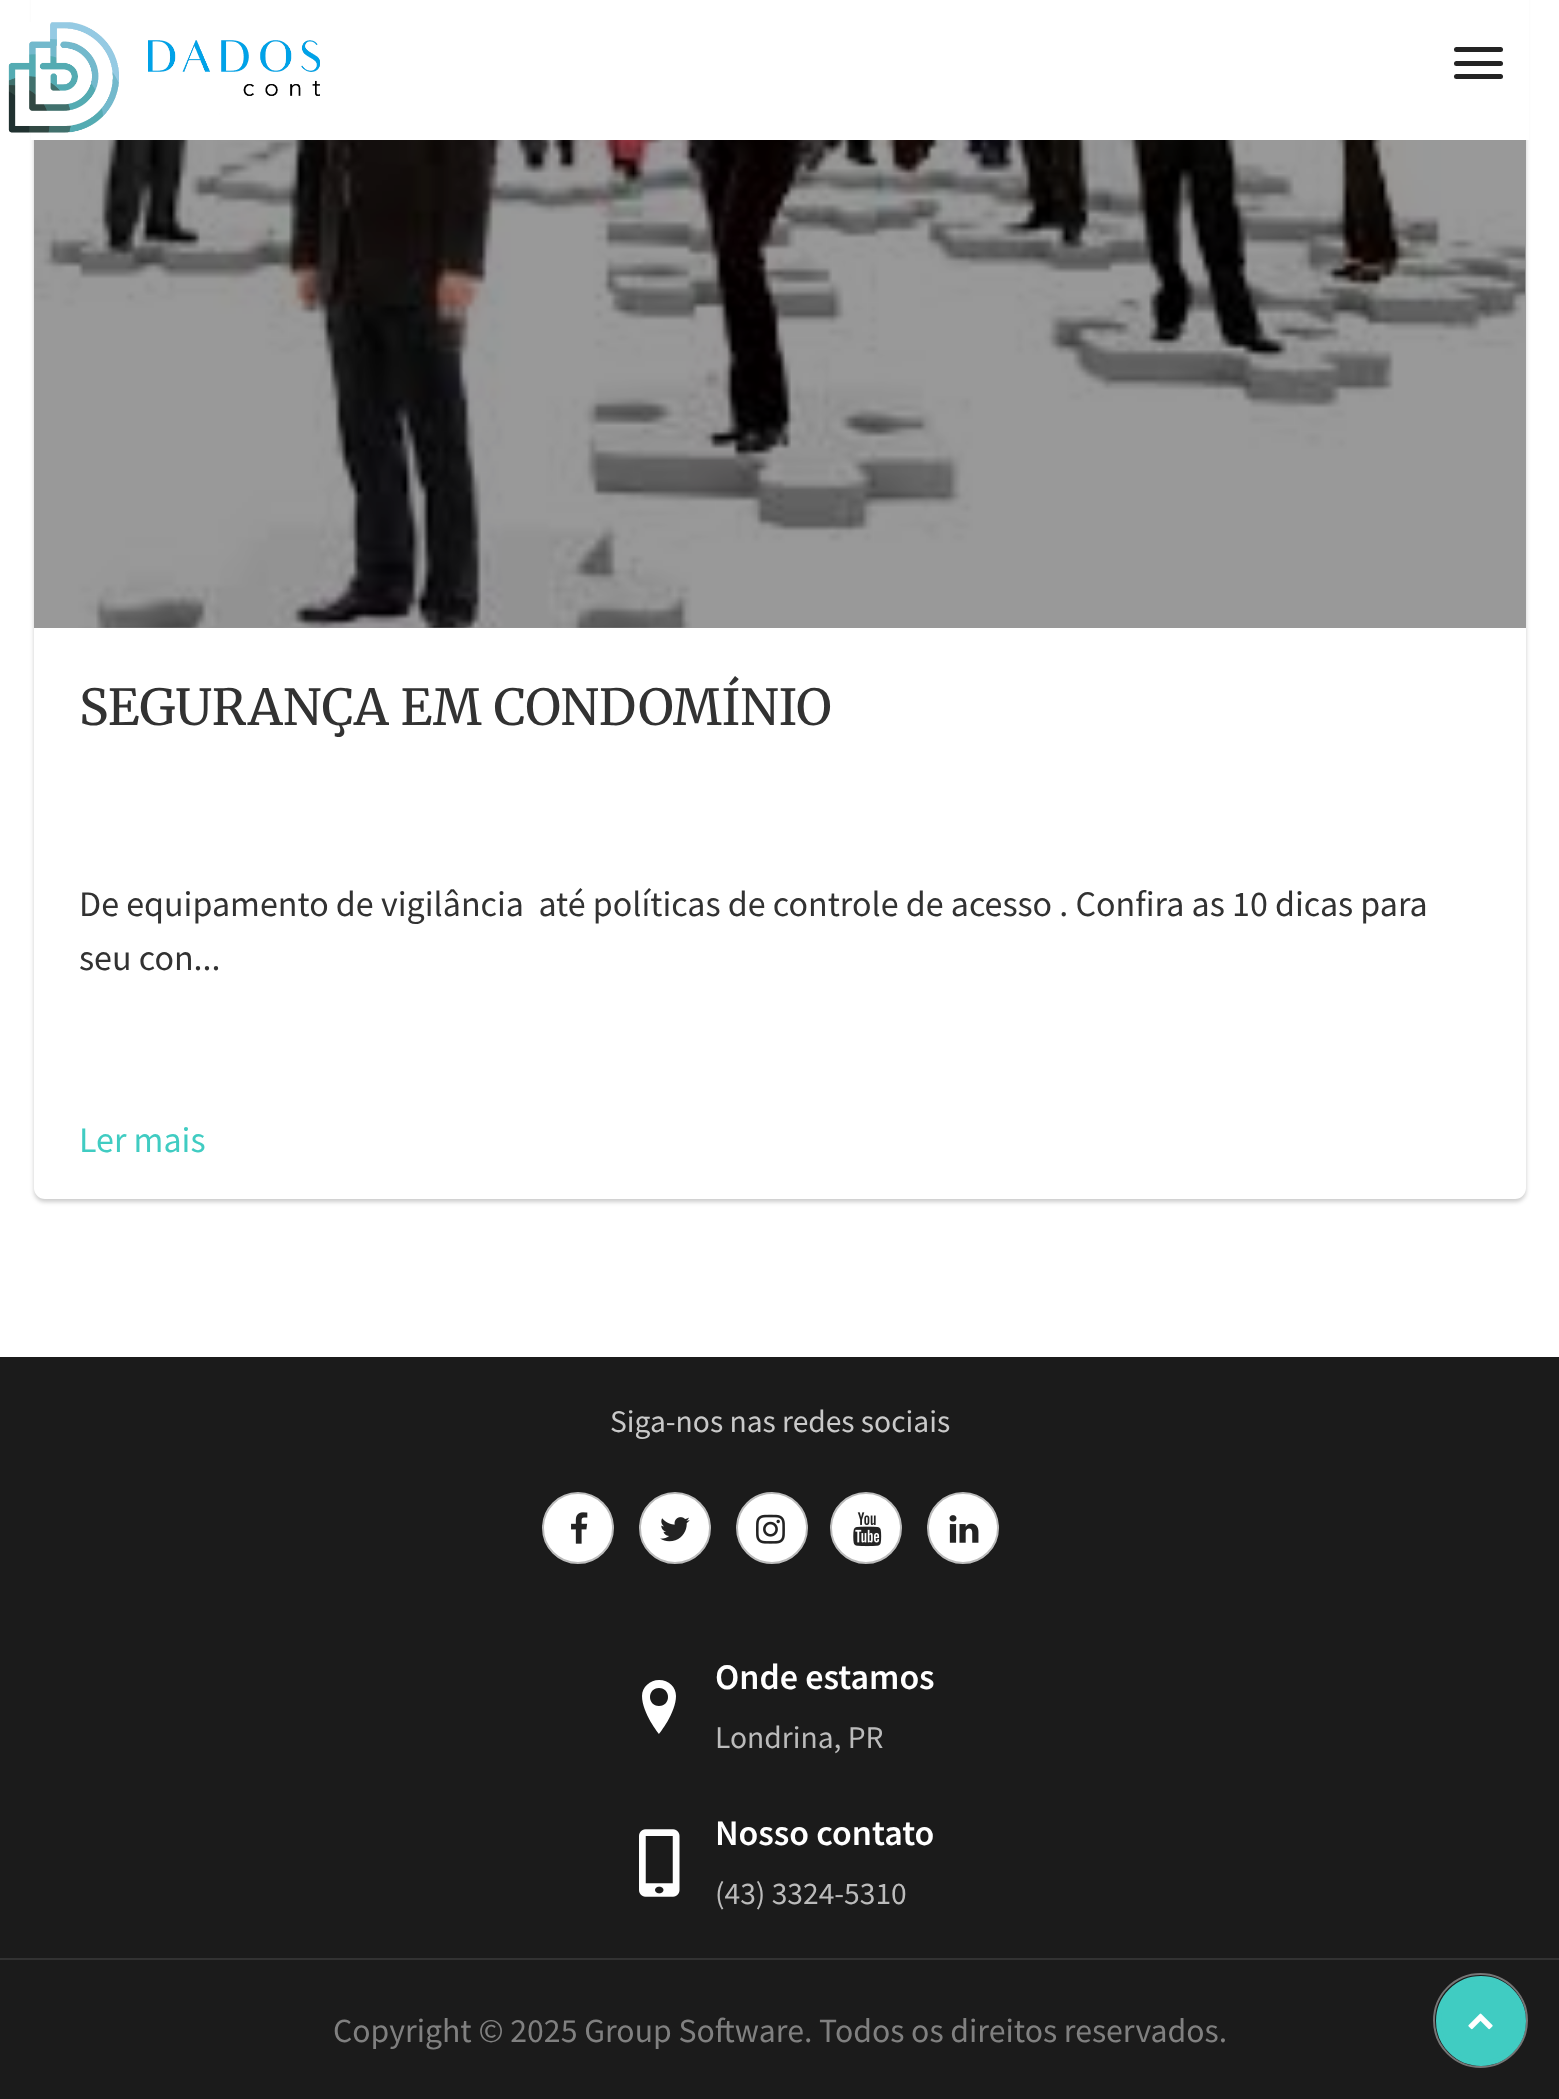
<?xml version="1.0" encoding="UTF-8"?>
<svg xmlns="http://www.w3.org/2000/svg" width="1559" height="2099">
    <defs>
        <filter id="blur1" x="-50%" y="-200%" width="200%" height="500%"><feGaussianBlur stdDeviation="2"/></filter>
    </defs>
    <rect width="100%" height="100%" fill="#FFFFFF"/>
    <rect x="34" y="-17" width="1492" height="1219" rx="11" fill="#000000" fill-opacity="0.2" filter="url(#blur1)"/>
    <rect x="34" y="-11" width="1492" height="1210" rx="11" fill="#FFFFFF"/>
    <rect x="31" y="0" width="1498" height="140" fill="#FFFFFF"/>
    <image x="8" y="22" width="312" height="111" href="img_01.png"/>
    <rect x="1454" y="47" width="49" height="5" rx="2.5" fill="#232323"/>
    <rect x="1454" y="61" width="49" height="5" rx="2.5" fill="#232323"/>
    <rect x="1454" y="74" width="49" height="5" rx="2.5" fill="#232323"/>
    <image x="34" y="140" width="1492" height="488" href="img_02.png"/>
    <rect x="34" y="140" width="1492" height="488" fill="#000000" fill-opacity="0.4"/>
    <text x="79" y="725" font-family="Merriweather" font-size="49.5" fill="#323232">SEGURANÇA EM CONDOMÍNIO</text>
    <text font-family="Source Sans Pro" font-size="36" fill="#323232" xml:space="preserve"><tspan x="79" y="916">De equipamento de vigilância  até políticas de controle de acesso . Confira as 10 dicas para</tspan><tspan x="79" y="970">seu con...</tspan></text>
    <text x="79" y="1152" font-family="Source Sans Pro" font-size="36" fill="#40CCC2">Ler mais</text>
    <rect x="0" y="1357" width="1559" height="742" fill="#1B1B1B"/>
    <text x="610" y="1432" font-family="Source Sans Pro" font-size="31.5" fill="#C9C9C9">Siga-nos nas redes sociais</text>
    <circle cx="578" cy="1528" r="35" fill="#FFFFFF" stroke="#BCBCBC" stroke-width="2"/>
    <image x="571" y="1512" width="17" height="32" href="img_03.png"/>
    <circle cx="675" cy="1528" r="35" fill="#FFFFFF" stroke="#BCBCBC" stroke-width="2"/>
    <image x="660" y="1517" width="30" height="25" href="img_04.png"/>
    <circle cx="772" cy="1528" r="35" fill="#FFFFFF" stroke="#BCBCBC" stroke-width="2"/>
    <image x="756" y="1514" width="29" height="30" href="img_05.png"/>
    <circle cx="866" cy="1528" r="35" fill="#FFFFFF" stroke="#BCBCBC" stroke-width="2"/>
    <image x="853" y="1512" width="29" height="35" href="img_06.png"/>
    <circle cx="963" cy="1528" r="35" fill="#FFFFFF" stroke="#BCBCBC" stroke-width="2"/>
    <image x="949" y="1515" width="30" height="28" href="img_07.png"/>
    <path d="M 659 1680 C 650 1680 642 1687 642 1696 C 642 1713 659 1734 659 1734 C 659 1734 676 1713 676 1696 C 676 1687 669 1680 659 1680 Z M 659 1706 C 647 1706 647 1688 659 1688 C 671 1688 671 1706 659 1706 Z" fill="#FFFFFF"/>
    <text x="715" y="1689" font-family="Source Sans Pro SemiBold" font-size="36" font-weight="600" fill="#FFFFFF">Onde estamos</text>
    <text x="715" y="1748" font-family="Source Sans Pro" font-size="31.5" fill="#BBBBBB">Londrina, PR</text>
    <image x="639" y="1829" width="41" height="68" href="img_08.png"/>
    <text x="715" y="1845" font-family="Source Sans Pro SemiBold" font-size="36" font-weight="600" fill="#FFFFFF">Nosso contato</text>
    <text x="715" y="1904" font-family="Source Sans Pro" font-size="31.5" fill="#BBBBBB">(43) 3324-5310</text>
    <rect x="0" y="1958" width="1559" height="2" fill="#323232"/>
    <text x="333" y="2042" font-family="Source Sans Pro" font-size="33.75" fill="#808080">Copyright © 2025 Group Software. Todos os direitos reservados.</text>
    <circle cx="1480.5" cy="2020.5" r="46.5" fill="none" stroke="#767676" stroke-width="2"/>
    <circle cx="1481" cy="2021" r="42.5" fill="#40CCC2" stroke="#40CCC2" stroke-width="5"/>
    <image x="1468" y="2013" width="25" height="17" href="img_09.png"/>
</svg>
